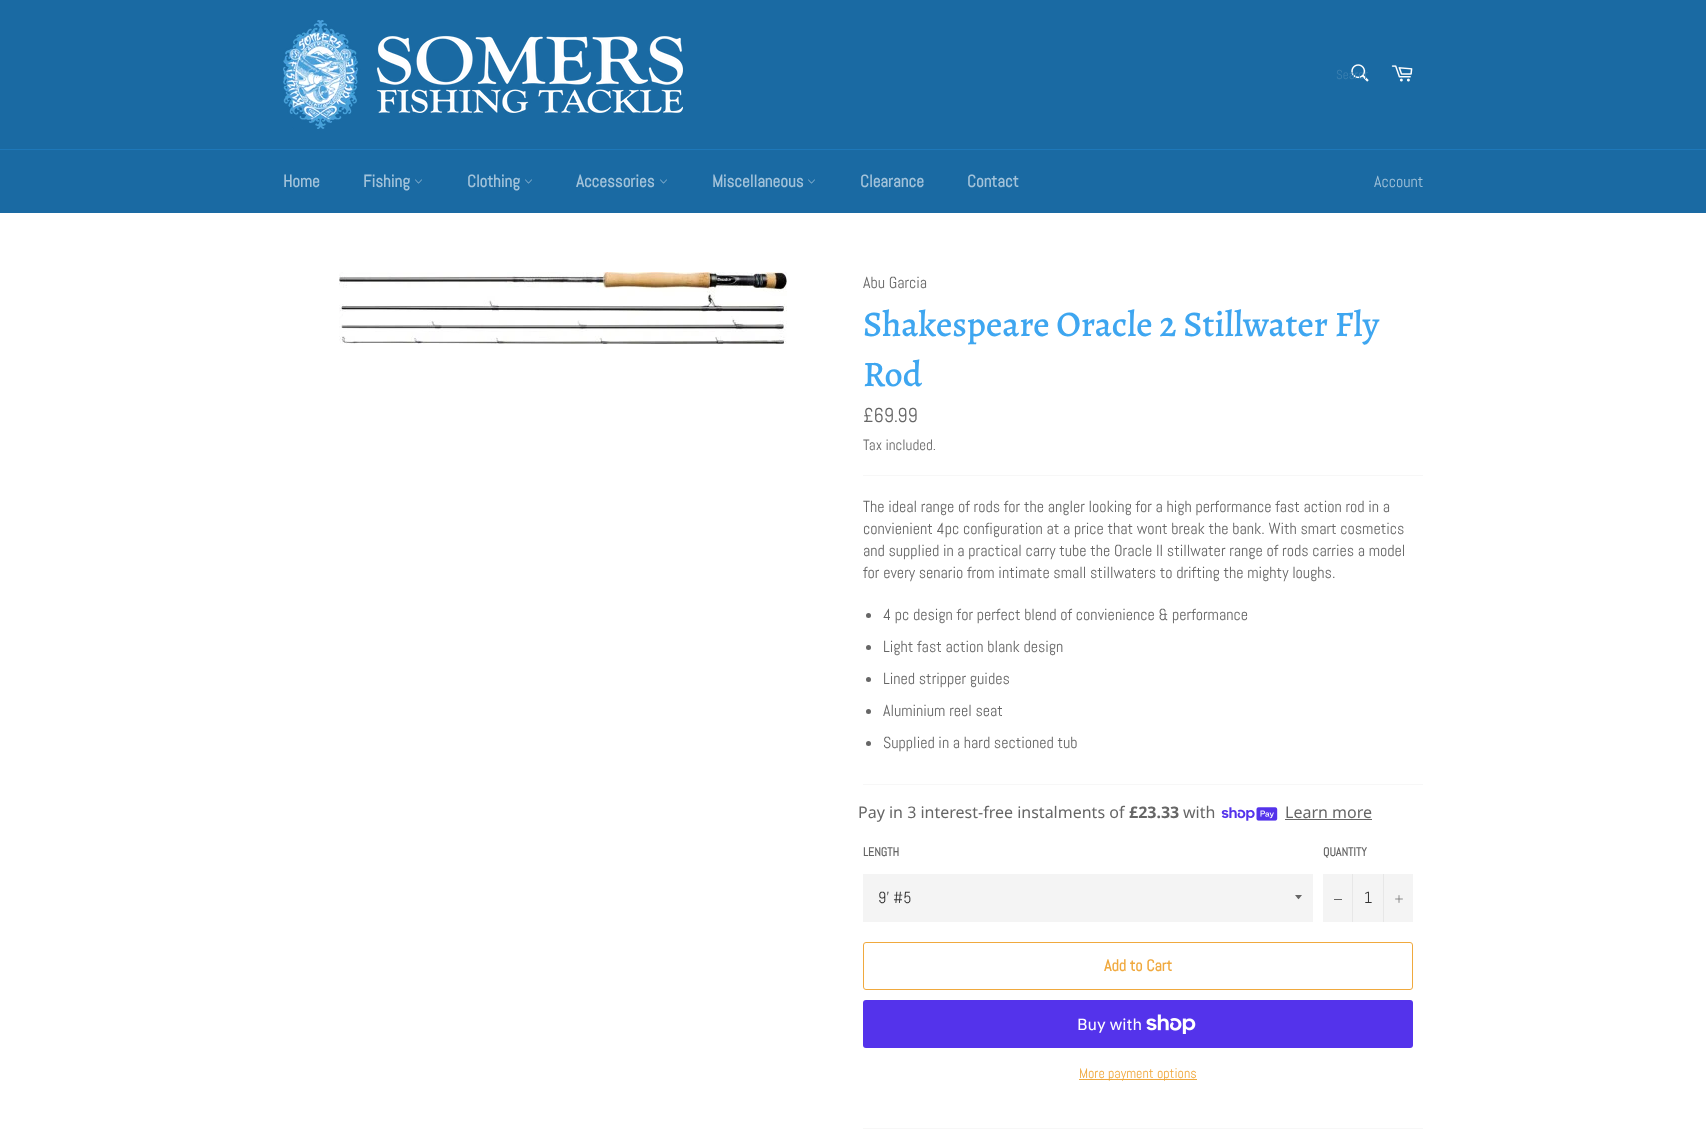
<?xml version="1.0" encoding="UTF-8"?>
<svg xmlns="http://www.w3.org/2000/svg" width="1706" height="1143">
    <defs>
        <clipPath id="clip1"><rect x="1336" y="66" width="32" height="17"/></clipPath>
    </defs>
    <rect width="100%" height="100%" fill="#1A6AA3"/>
    <image x="283" y="20" width="400" height="109" href="img_01.png"/>
    <image x="1351" y="64" width="18" height="18" href="img_02.png"/>
    <g clip-path="url(#clip1)">
        <text x="1336" y="79" font-family="Abel" font-size="13" fill="#3D81B1">Search</text>
    </g>
    <image x="1391" y="65" width="22" height="17" href="img_03.png"/>
    <rect x="0" y="149" width="1706" height="1" fill="#1E78B9"/>
    <text x="283" y="187" font-family="Abel" font-size="17" font-weight="700" fill="#A3C3DA">Home</text>
    <text x="363" y="187" font-family="Abel" font-size="17" font-weight="700" fill="#A3C3DA">Fishing</text>
    <image x="415" y="179" width="7" height="5" href="img_04.png"/>
    <text x="467" y="187" font-family="Abel" font-size="17" font-weight="700" fill="#A3C3DA">Clothing</text>
    <image x="525" y="179" width="7" height="5" href="img_04.png"/>
    <text x="576" y="187" font-family="Abel" font-size="17" font-weight="700" fill="#A3C3DA">Accessories</text>
    <image x="660" y="179" width="7" height="5" href="img_04.png"/>
    <text x="712" y="187" font-family="Abel" font-size="17" font-weight="700" fill="#A3C3DA">Miscellaneous</text>
    <image x="808" y="179" width="7" height="5" href="img_04.png"/>
    <text x="860" y="187" font-family="Abel" font-size="17" font-weight="700" fill="#A3C3DA">Clearance</text>
    <text x="967" y="187" font-family="Abel" font-size="17" font-weight="700" fill="#A3C3DA">Contact</text>
    <text x="1374" y="187" font-family="Abel" font-size="16" fill="#A3C3DA">Account</text>
    <rect x="0" y="213" width="1706" height="930" fill="#FFFFFF"/>
    <image x="339" y="272" width="448" height="72" href="img_05.png"/>
    <text x="863" y="288" font-family="Abel" font-size="16" fill="#666666">Abu Garcia</text>
    <text font-family="Alegreya" font-size="36" font-weight="500" fill="#3EA6F0">
        <tspan x="863" y="336">Shakespeare Oracle 2 Stillwater Fly</tspan>
        <tspan x="863" y="386">Rod</tspan>
    </text>
    <text x="863" y="422" font-family="Abel" font-size="20" fill="#666666">£69.99</text>
    <text x="863" y="450" font-family="Abel" font-size="15" fill="#666666">Tax included.</text>
    <rect x="863" y="475" width="560" height="1" fill="#F7F7F7"/>
    <text font-family="Abel" font-size="16" fill="#666666">
        <tspan x="863" y="512">The ideal range of rods for the angler looking for a high performance fast action rod in a</tspan>
        <tspan x="863" y="534">convienient 4pc configuration at a price that wont break the bank. With smart cosmetics</tspan>
        <tspan x="863" y="556">and supplied in a practical carry tube the Oracle II stillwater range of rods carries a model</tspan>
        <tspan x="863" y="578">for every senario from intimate small stillwaters to drifting the mighty loughs.</tspan>
    </text>
    <circle cx="868.5" cy="615.5" r="2.5" fill="#666666"/>
    <text x="883" y="620" font-family="Abel" font-size="16" fill="#666666">4 pc design for perfect blend of convienience &amp; performance</text>
    <circle cx="868.5" cy="647.5" r="2.5" fill="#666666"/>
    <text x="883" y="652" font-family="Abel" font-size="16" fill="#666666">Light fast action blank design</text>
    <circle cx="868.5" cy="679.5" r="2.5" fill="#666666"/>
    <text x="883" y="684" font-family="Abel" font-size="16" fill="#666666">Lined stripper guides</text>
    <circle cx="868.5" cy="711.5" r="2.5" fill="#666666"/>
    <text x="883" y="716" font-family="Abel" font-size="16" fill="#666666">Aluminium reel seat</text>
    <circle cx="868.5" cy="743.5" r="2.5" fill="#666666"/>
    <text x="883" y="748" font-family="Abel" font-size="16" fill="#666666">Supplied in a hard sectioned tub</text>
    <rect x="863" y="784" width="560" height="1" fill="#F7F7F7"/>
    <text x="858" y="818" font-family="Noto Sans" font-size="16" fill="#666666">Pay in 3 interest-free instalments of</text>
    <text x="1129" y="818" font-family="Noto Sans" font-size="16" font-weight="700" fill="#666666">£23.33</text>
    <text x="1183" y="818" font-family="Noto Sans" font-size="16" fill="#666666">with</text>
    <image x="1221" y="807" width="57" height="14" href="img_06.png"/>
    <text x="1285" y="818" font-family="Noto Sans" font-size="16" fill="#666666">Learn more</text>
    <rect x="1285" y="819" width="87" height="1" fill="#666666"/>
    <text x="863" y="856" font-family="Abel" font-size="12" font-weight="700" fill="#666666">LENGTH</text>
    <rect x="863" y="874" width="450" height="48" fill="#F4F4F4"/>
    <path d="M 1295 895 C 1299.5 900.5 1297.5 900.5 1302 895 Z" fill="#666666"/>
    <text x="878" y="903" font-family="Abel" font-size="16" fill="#333333">9' #5</text>
    <text x="1323" y="856" font-family="Abel" font-size="12" font-weight="700" fill="#666666">QUANTITY</text>
    <rect x="1323" y="874" width="90" height="48" fill="#F4F4F4"/>
    <rect x="1352" y="874" width="1" height="48" fill="#E7E7E7"/>
    <rect x="1334" y="899" width="8" height="1" fill="#666666"/>
    <text x="1364" y="903" font-family="Abel" font-size="16" fill="#333333">1</text>
    <rect x="1383" y="874" width="1" height="48" fill="#E7E7E7"/>
    <image x="1395" y="895" width="8" height="8" href="img_07.png"/>
    <rect x="863.5" y="942.5" width="549" height="47" rx="2.5" fill="none" stroke="#F0A93E"/>
    <text x="1104" y="971" font-family="Abel" font-size="16" font-weight="700" fill="#F0A93E">Add to Cart</text>
    <rect x="863" y="1000" width="550" height="48" rx="3" fill="#5433EB"/>
    <text x="1077" y="1030" font-family="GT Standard" font-size="16" fill="#FFFFFF">Buy with</text>
    <image x="1146" y="1014" width="50" height="20" href="img_08.png"/>
    <rect x="1079" y="1079" width="118" height="1" fill="#F0A93E"/>
    <text x="1079" y="1078" font-family="Abel" font-size="14" fill="#F0A93E">More payment options</text>
    <rect x="863" y="1128" width="560" height="1" fill="#F7F7F7"/>
</svg>
